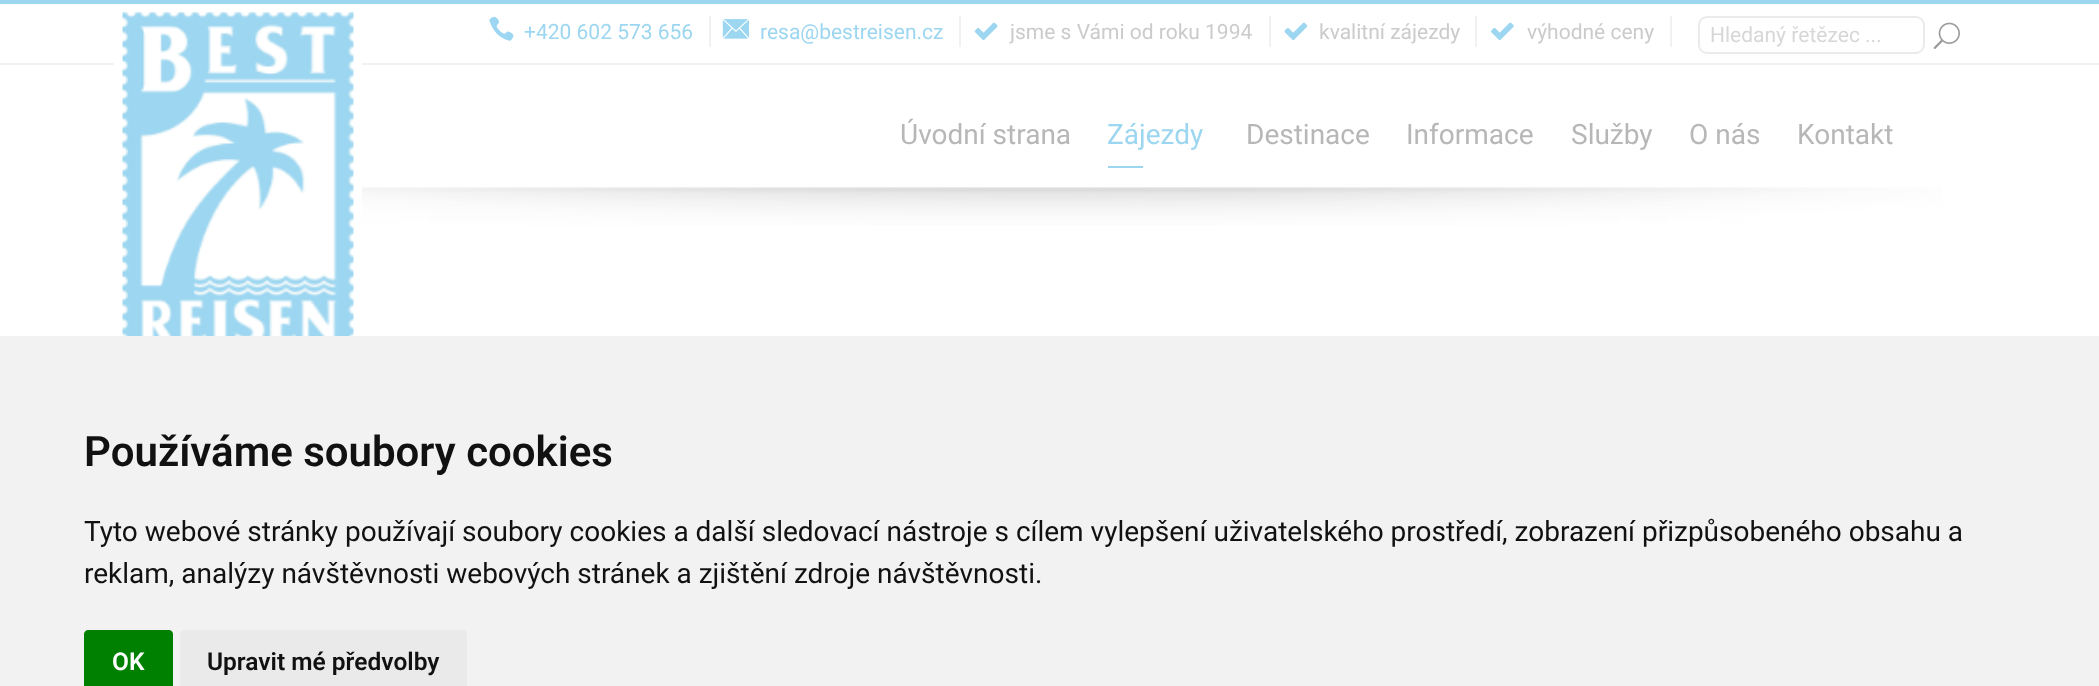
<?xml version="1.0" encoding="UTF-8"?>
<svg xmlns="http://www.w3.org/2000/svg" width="2099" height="686">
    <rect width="100%" height="100%" fill="#FFFFFF"/>
    <rect x="0" y="0" width="2099" height="4" fill="#9CD6F1"/>
    <rect x="0" y="63" width="2099" height="2" fill="#F1F1F1"/>
    <rect x="709" y="16" width="2" height="31" fill="#F1F1F1"/>
    <image x="489" y="16" width="25" height="25" href="img_01.png"/>
    <text x="524" y="39" font-family="Roboto" font-size="21" fill="#9CD6F1">+420 602 573 656</text>
    <rect x="959" y="16" width="2" height="31" fill="#F1F1F1"/>
    <image x="722" y="19" width="27" height="20" href="img_02.png"/>
    <text x="760" y="39" font-family="Roboto" font-size="21" fill="#9CD6F1">resa@bestreisen.cz</text>
    <rect x="1269" y="16" width="2" height="31" fill="#F1F1F1"/>
    <image x="974" y="22" width="24" height="18" href="img_03.png"/>
    <text x="1010" y="39" font-family="Roboto" font-size="21" fill="#CBCBCB">jsme s Vámi od roku 1994</text>
    <rect x="1475" y="16" width="2" height="31" fill="#F1F1F1"/>
    <image x="1284" y="22" width="24" height="18" href="img_04.png"/>
    <text x="1319" y="39" font-family="Roboto" font-size="21" fill="#CBCBCB">kvalitní zájezdy</text>
    <rect x="1670" y="16" width="2" height="31" fill="#F1F1F1"/>
    <image x="1491" y="22" width="23" height="18" href="img_05.png"/>
    <text x="1527" y="39" font-family="Roboto" font-size="21" fill="#CBCBCB">výhodné ceny</text>
    <rect x="1699" y="17" width="225" height="36" rx="8" fill="none" stroke="#EBEBEB" stroke-width="2"/>
    <text x="1710" y="42" font-family="Roboto" font-size="21" fill="#D7D7D7">Hledaný řetězec ...</text>
    <image x="1933" y="22" width="27" height="27" href="img_06.png"/>
    <rect x="118.5" y="8.5" width="239" height="358" fill="none" stroke="#FFFFFF" stroke-width="9"/>
    <image x="122" y="11" width="232" height="325" href="img_07.png"/>
    <text x="900" y="144" font-family="Roboto" font-size="28" fill="#B7B7B7">Úvodní strana</text>
    <text x="1107" y="144" font-family="Roboto" font-size="28" fill="#9CD6F1">Zájezdy</text>
    <rect x="1108" y="166" width="35" height="2" fill="#9CD6F1"/>
    <text x="1246" y="144" font-family="Roboto" font-size="28" fill="#B7B7B7">Destinace</text>
    <text x="1406" y="144" font-family="Roboto" font-size="28" fill="#B7B7B7">Informace</text>
    <text x="1571" y="144" font-family="Roboto" font-size="28" fill="#B7B7B7">Služby</text>
    <text x="1689" y="144" font-family="Roboto" font-size="28" fill="#B7B7B7">O nás</text>
    <text x="1797" y="144" font-family="Roboto" font-size="28" fill="#B7B7B7">Kontakt</text>
    <image x="362" y="187" width="1580" height="39" href="img_08.png"/>
    <rect x="0" y="336" width="2099" height="350" fill="#F2F2F2"/>
    <text x="84" y="466" font-family="Roboto" font-size="42" font-weight="600" fill="#111111">Používáme soubory cookies</text>
    <text font-family="Roboto" font-size="28" fill="#111111">
        <tspan x="84" y="541">Tyto webové stránky používají soubory cookies a další sledovací nástroje s cílem vylepšení uživatelského prostředí, zobrazení přizpůsobeného obsahu a</tspan>
        <tspan x="84" y="583">reklam, analýzy návštěvnosti webových stránek a zjištění zdroje návštěvnosti.</tspan>
    </text>
    <path d="M 88 630 H 169 C 171 630 173 632 173 634 V 686 H 84 V 634 C 84 632 86 630 88 630 Z" fill="#008000"/>
    <text x="112" y="670" font-family="Roboto" font-size="24.5" font-weight="600" fill="#FFFFFF">OK</text>
    <path d="M 184 630 H 463 C 465 630 467 632 467 634 V 686 H 180 V 634 C 180 632 182 630 184 630 Z" fill="#EAEAEA"/>
    <text x="207" y="670" font-family="Roboto" font-size="24.5" font-weight="600" fill="#111111">Upravit mé předvolby</text>
</svg>
